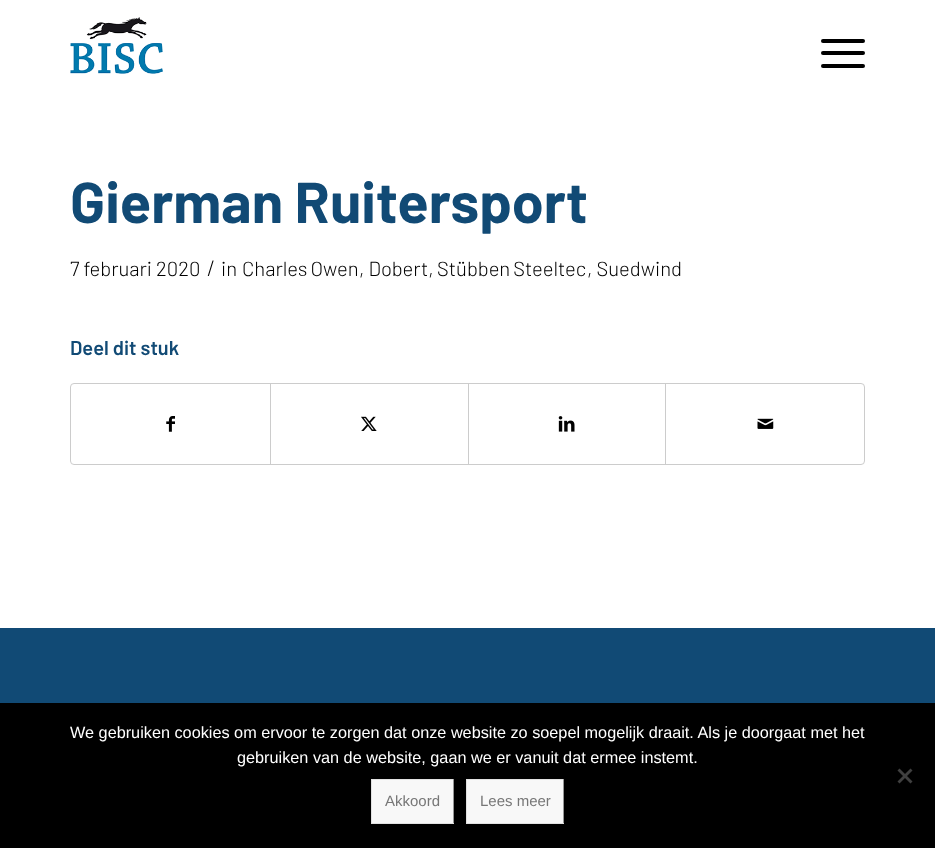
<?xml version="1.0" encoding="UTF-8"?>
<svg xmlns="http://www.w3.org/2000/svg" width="935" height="848">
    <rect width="100%" height="100%" fill="#FFFFFF"/>
    <image x="70" y="17" width="93" height="57" href="img_01.png"/>
    <rect x="821" y="51" width="44" height="4" rx="2" fill="#000000"/>
    <rect x="821" y="39" width="44" height="4" rx="2" fill="#000000"/>
    <rect x="821" y="64" width="44" height="4" rx="2" fill="#000000"/>
    <text x="70" y="223" font-family="Barlow" font-size="57.5" font-weight="700" fill="#114A75">Gierman Ruitersport</text>
    <text x="70" y="276" font-family="Barlow" font-size="20.25" font-weight="300" fill="#000000">7 februari 2020</text>
    <text x="207" y="276" font-family="Barlow" font-size="22" font-weight="300" fill="#000000">/</text>
    <text x="221" y="276" font-family="Barlow" font-size="20.25" font-weight="300" fill="#000000">in</text>
    <text x="242" y="276" word-spacing="-1" font-family="Barlow" font-size="20.25" font-weight="300" fill="#000000">Charles Owen</text>
    <text x="359" y="276" font-family="Barlow" font-size="20.25" font-weight="300" fill="#000000">, Dobert,</text>
    <text x="437" y="276" word-spacing="-1" font-family="Barlow" font-size="20.25" font-weight="300" fill="#000000">Stübben Steeltec</text>
    <text x="587" y="276" font-family="Barlow" font-size="20.25" font-weight="300" fill="#000000">, Suedwind</text>
    <text x="70" y="355" font-family="Barlow" font-size="20" font-weight="600" fill="#114A75">Deel dit stuk</text>
    <rect x="70.5" y="383.5" width="794" height="81" rx="3.5" fill="none" stroke="#CCCCCC"/>
    <image x="166" y="416" width="9" height="16" href="img_02.png"/>
    <rect x="270" y="384" width="1" height="80" fill="#CCCCCC"/>
    <image x="361" y="416" width="16" height="15" href="img_03.png"/>
    <rect x="468" y="384" width="1" height="80" fill="#CCCCCC"/>
    <image x="558" y="416" width="17" height="16" href="img_04.png"/>
    <rect x="665" y="384" width="1" height="80" fill="#CCCCCC"/>
    <image x="757" y="418" width="17" height="11" href="img_05.png"/>
    <rect x="0" y="628" width="935" height="75" fill="#114A75"/>
    <rect x="0" y="703" width="935" height="145" fill="#000000"/>
    <text x="70" y="738" font-family="Liberation Sans" font-size="16.25" fill="#FFFFFF">We gebruiken cookies om ervoor te zorgen dat onze website zo soepel mogelijk draait. Als je doorgaat met het</text>
    <text x="237" y="763" font-family="Liberation Sans" font-size="16.25" fill="#FFFFFF">gebruiken van de website, gaan we er vanuit dat ermee instemt.</text>
    <path d="M 910.5 768.5 L 912.5 770.5 L 899.5 783.5 L 897.5 781.5 Z" fill="#404040"/>
    <path d="M 897.5 770.5 L 899.5 768.5 L 912.5 781.5 L 910.5 783.5 Z" fill="#404040"/>
    <rect x="372" y="780" width="81" height="43" fill="#F8F8F8"/>
    <rect x="371" y="779" width="83" height="1" fill="#E1E1E1"/>
    <rect x="453" y="779" width="1" height="45" fill="#969696"/>
    <rect x="371" y="823" width="83" height="1" fill="#E1E1E1"/>
    <rect x="371" y="779" width="1" height="45" fill="#E1E1E1"/>
    <text x="385" y="806" font-family="Liberation Sans" font-size="15" fill="#777777">Akkoord</text>
    <rect x="467" y="780" width="96" height="43" fill="#F8F8F8"/>
    <rect x="466" y="779" width="98" height="1" fill="#E1E1E1"/>
    <rect x="563" y="779" width="1" height="45" fill="#969696"/>
    <rect x="466" y="823" width="98" height="1" fill="#E1E1E1"/>
    <rect x="466" y="779" width="1" height="45" fill="#E1E1E1"/>
    <text x="480" y="806" font-family="Liberation Sans" font-size="15" fill="#777777">Lees meer</text>
</svg>
